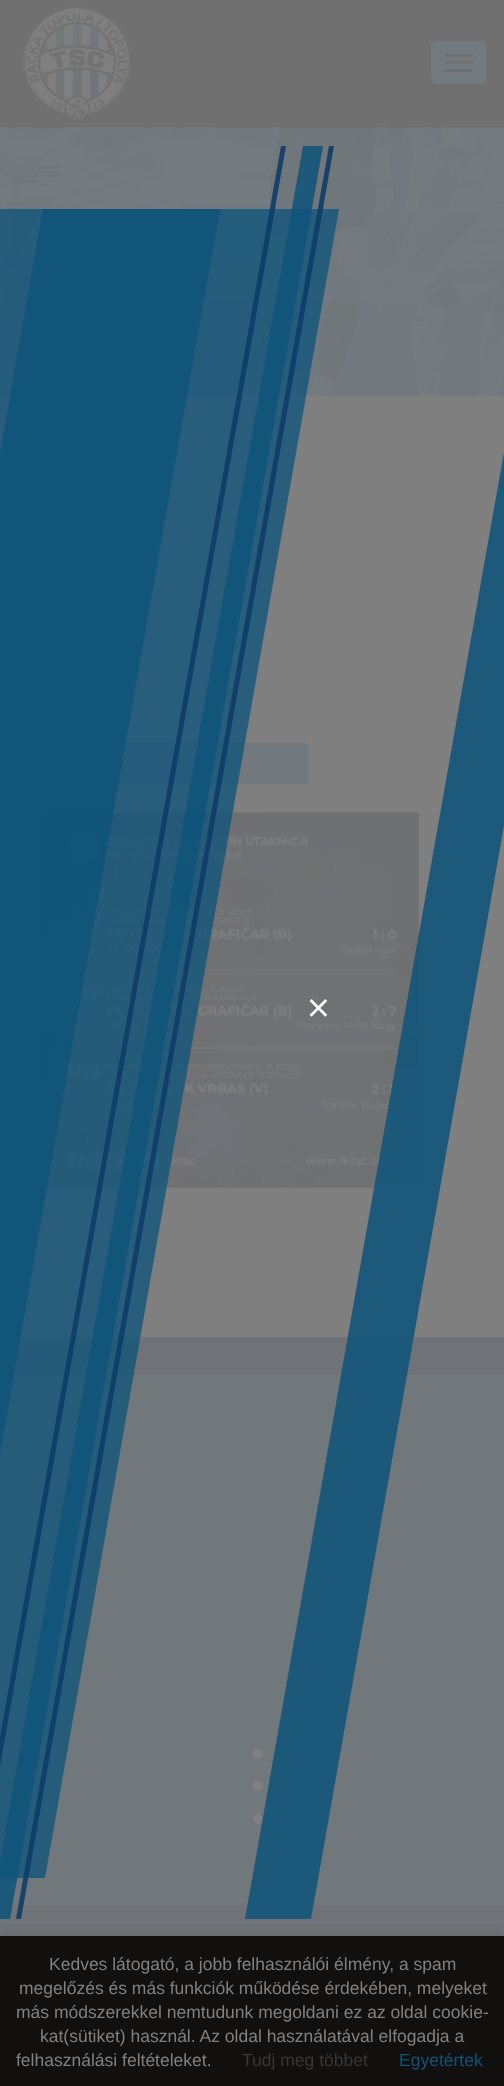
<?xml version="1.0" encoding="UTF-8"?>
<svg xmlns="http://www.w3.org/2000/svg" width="504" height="2086">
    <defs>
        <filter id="blur1" x="-50%" y="-200%" width="200%" height="500%"><feGaussianBlur stdDeviation="6"/></filter>
    </defs>
    <rect width="100%" height="100%" fill="#7F7F7F"/>
    <rect x="0" y="0" width="504" height="128" fill="#707070"/>
    <image x="21" y="6" width="111" height="115" href="img_01.png"/>
    <rect x="431" y="41" width="55" height="43" rx="5" fill="#717A7F"/>
    <rect x="445" y="54" width="28" height="3" rx="1.5" fill="#707070"/>
    <rect x="445" y="61" width="28" height="3" rx="1.5" fill="#707070"/>
    <rect x="445" y="69" width="28" height="3" rx="1.5" fill="#707070"/>
    <image x="0" y="127" width="504" height="270" href="img_02.png"/>
    <rect x="44" y="743" width="142" height="41" fill="#71787E"/>
    <path d="M 184 742 H 197 L 189 783 H 177 Z" fill="#71787E"/>
    <rect x="211" y="743" width="97" height="41" fill="#71787E"/>
    <path d="M 209 742 H 222 L 214 783 H 202 Z" fill="#71787E"/>
    <image x="43" y="812" width="376" height="376" href="img_03.png"/>
    <rect x="0" y="1337" width="504" height="599" fill="#6F7276"/>
    <rect x="0" y="1375" width="504" height="530" fill="#71787C"/>
    <circle cx="24" cy="1754" r="5" fill="#808080"/>
    <circle cx="258" cy="1754" r="5" fill="#808080"/>
    <circle cx="24" cy="1786" r="5" fill="#808080"/>
    <circle cx="258" cy="1786" r="5" fill="#808080"/>
    <circle cx="24" cy="1819" r="5" fill="#808080"/>
    <circle cx="258" cy="1819" r="5" fill="#808080"/>
    <path d="M -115 209 H 339 L 45 1878 H -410 Z" fill="#0F547A" fill-opacity="0.78"/>
    <path d="M 43 209 H 220 L -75 1878 H -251 Z" fill="#0F547A" fill-opacity="0.87"/>
    <path d="M 303 146 H 323 L 10 1919 H -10 Z" fill="#0F547A" fill-opacity="0.87"/>
    <path d="M 281 146 H 286 L -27 1919 H -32 Z" fill="#0D3B69" fill-opacity="0.87"/>
    <path d="M 329 146 H 334 L 21 1919 H 16 Z" fill="#0D3B69" fill-opacity="0.87"/>
    <path d="M 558 146 H 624 L 311 1919 H 245 Z" fill="#0F547A" fill-opacity="0.87"/>
    <text x="307" y="1022" font-family="Open Sans" font-size="40" fill="#FAFAFA">×</text>
    <rect x="0" y="1935" width="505" height="150" fill="#565656" fill-opacity="0.3" filter="url(#blur1)"/>
    <rect x="0" y="1936" width="504" height="150" fill="#12100F"/>
    <text x="49" y="1970" font-family="Liberation Sans" font-size="17.5" fill="#808080">Kedves látogató, a jobb felhasználói élmény, a spam</text>
    <text x="19" y="1994" font-family="Liberation Sans" font-size="17.5" fill="#808080">megelőzés és más funkciók működése érdekében, melyeket</text>
    <text x="16" y="2018" font-family="Liberation Sans" font-size="17.5" fill="#808080">más módszerekkel nemtudunk megoldani ez az oldal cookie-</text>
    <text x="40" y="2042" font-family="Liberation Sans" font-size="17.5" fill="#808080">kat(sütiket) használ. Az oldal használatával elfogadja a</text>
    <text x="16" y="2066" font-family="Liberation Sans" font-size="17.5" fill="#808080">felhasználási feltételeket.</text>
    <text x="242" y="2066" font-family="Liberation Sans" font-size="17.5" fill="#373737">Tudj meg többet</text>
    <text x="399" y="2066" font-family="Liberation Sans" font-size="17.5" fill="#0F547A">Egyetértek</text>
</svg>
